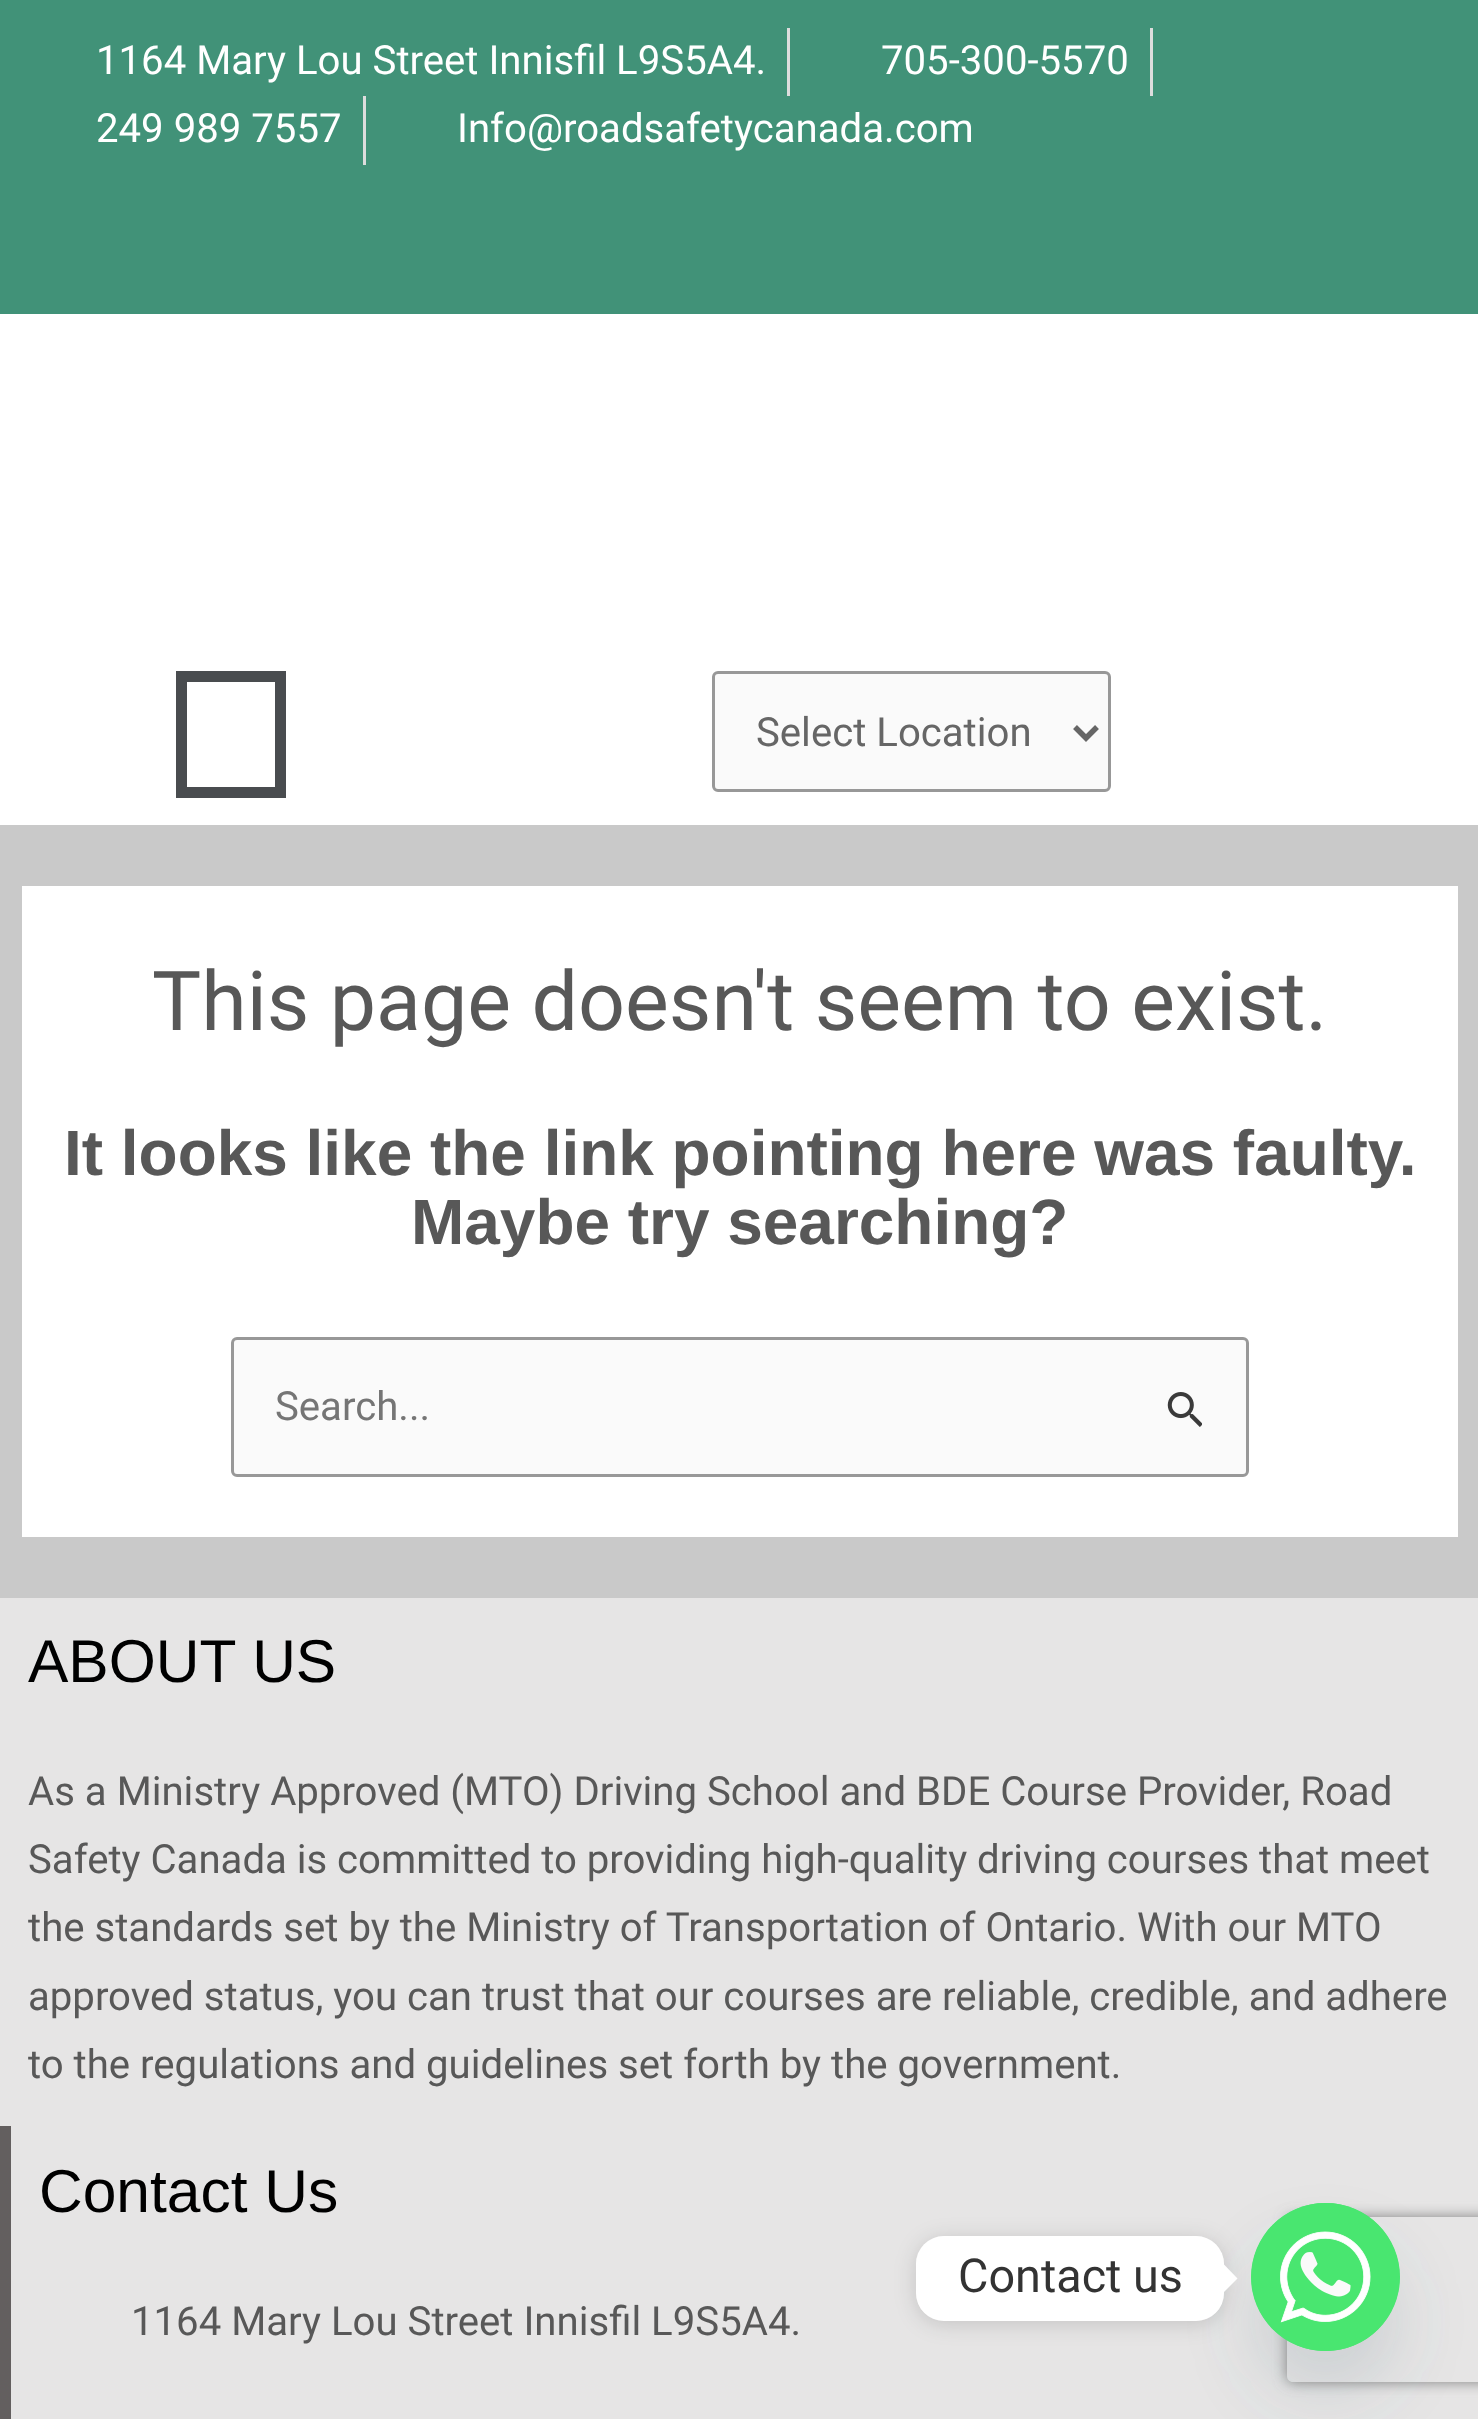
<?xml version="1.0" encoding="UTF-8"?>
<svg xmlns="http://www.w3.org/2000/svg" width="1478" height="2419">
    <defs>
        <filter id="blur1" x="-50%" y="-200%" width="200%" height="500%"><feGaussianBlur stdDeviation="33"/></filter>
        <clipPath id="clip1"><path d="M 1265 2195 H 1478 V 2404 H 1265 Z M 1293 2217 H 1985 C 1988.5 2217 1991 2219.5 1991 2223 V 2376 C 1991 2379.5 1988.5 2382 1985 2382 H 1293 C 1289.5 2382 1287 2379.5 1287 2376 V 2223 C 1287 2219.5 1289.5 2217 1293 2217 Z" clip-rule="evenodd"/></clipPath>
        <filter id="blur2" x="-50%" y="-200%" width="200%" height="500%"><feGaussianBlur stdDeviation="7"/></filter>
        <clipPath id="clip2"><path d="M 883 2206 H 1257 V 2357 H 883 Z M 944 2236 H 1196 C 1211.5 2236 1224 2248.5 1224 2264 V 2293 C 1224 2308.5 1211.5 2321 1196 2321 H 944 C 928.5 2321 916 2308.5 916 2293 V 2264 C 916 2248.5 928.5 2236 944 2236 Z" clip-rule="evenodd"/></clipPath>
        <filter id="blur3" x="-50%" y="-200%" width="200%" height="500%"><feGaussianBlur stdDeviation="10.5"/></filter>
    </defs>
    <rect width="100%" height="100%" fill="#C9C9C9"/>
    <rect x="0" y="0" width="1478" height="314" fill="#419278"/>
    <text x="96" y="74" font-family="Roboto" font-size="40.15" fill="#FFFFFF">1164 Mary Lou Street Innisfil L9S5A4.</text>
    <rect x="787" y="28" width="3" height="68" fill="#DDDDDD"/>
    <text x="881" y="74" font-family="Roboto" font-size="40.15" fill="#FFFFFF">705-300-5570</text>
    <rect x="1150" y="28" width="3" height="68" fill="#DDDDDD"/>
    <text x="96" y="142" font-family="Roboto" font-size="40.15" fill="#FFFFFF">249 989 7557</text>
    <rect x="363" y="96" width="3" height="69" fill="#DDDDDD"/>
    <text x="457" y="142" font-family="Roboto" font-size="40.15" fill="#FFFFFF">Info@roadsafetycanada.com</text>
    <rect x="0" y="314" width="1478" height="511" fill="#FFFFFF"/>
    <rect x="181.5" y="676.5" width="99" height="116" fill="none" stroke="#494C4F" stroke-width="11"/>
    <rect x="713.5" y="672.5" width="396" height="118" rx="4.5" fill="#FAFAFA" stroke="#989898" stroke-width="3"/>
    <path d="M 1075 727 L 1086 738 L 1097 727" fill="none" stroke="#666666" stroke-width="5.5"/>
    <text x="756" y="746" font-family="Roboto" font-size="40.15" fill="#666666">Select Location</text>
    <rect x="22" y="886" width="1436" height="651" fill="#FFFFFF"/>
    <text x="152" y="1030" font-family="Roboto" font-size="82.5" fill="#585858">This page doesn't seem to exist.</text>
    <text x="64" y="1175" font-family="Liberation Sans" font-size="63.95" font-weight="700" fill="#585858">It looks like the link pointing here was faulty.</text>
    <text x="411" y="1244" font-family="Liberation Sans" font-size="63.95" font-weight="700" fill="#585858">Maybe try searching?</text>
    <rect x="232.5" y="1338.5" width="1015" height="137" rx="4.5" fill="#FAFAFA" stroke="#989898" stroke-width="3"/>
    <text x="275" y="1420" font-family="Roboto" font-size="40.15" fill="#757575">Search...</text>
    <image x="1167" y="1392" width="35" height="35" href="img_01.png"/>
    <rect x="0" y="2126" width="11" height="293" fill="#635F5F"/>
    <rect x="0" y="1598" width="1478" height="528" fill="#E6E5E5"/>
    <text x="28" y="1682" font-family="Liberation Sans" font-size="60.5" fill="#000000">ABOUT US</text>
    <text font-family="Roboto" font-size="40.15" fill="#585858">
        <tspan x="28" y="1805">As a Ministry Approved (MTO) Driving School and BDE Course Provider, Road</tspan>
        <tspan x="28" y="1873" word-spacing="-0.1">Safety Canada is committed to providing high-quality driving courses that meet</tspan>
        <tspan x="28" y="1941">the standards set by the Ministry of Transportation of Ontario. With our MTO</tspan>
        <tspan x="28" y="2010">approved status, you can trust that our courses are reliable, credible, and adhere</tspan>
        <tspan x="28" y="2078">to the regulations and guidelines set forth by the government.</tspan>
    </text>
    <rect x="11" y="2126" width="1467" height="293" fill="#E6E5E5"/>
    <text x="39" y="2212" font-family="Liberation Sans" font-size="60.5" fill="#000000">Contact Us</text>
    <text x="131" y="2335" font-family="Roboto" font-size="40.15" fill="#585858">1164 Mary Lou Street Innisfil L9S5A4.</text>
    <rect x="1251" y="2247" width="149" height="148" rx="74" fill="#49687E" fill-opacity="0.16" filter="url(#blur1)"/>
    <g clip-path="url(#clip1)">
        <rect x="1287" y="2217" width="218" height="165" rx="6" fill="#808080" filter="url(#blur2)"/>
    </g>
    <rect x="1251" y="2203" width="149" height="148" rx="74" fill="#49E670"/>
    <image x="1251" y="2203" width="149" height="148" href="img_02.png"/>
    <g clip-path="url(#clip2)">
        <rect x="916" y="2239" width="308" height="85" rx="28" fill="#000000" fill-opacity="0.15" filter="url(#blur3)"/>
    </g>
    <rect x="916" y="2236" width="308" height="85" rx="28" fill="#FFFFFF"/>
    <text x="958" y="2292" font-family="Roboto" font-size="46.75" fill="#333333">Contact us</text>
    <path d="M 1224 2292 V 2264.5 L 1237.5 2278.5 Z" fill="#FFFFFF"/>
</svg>
